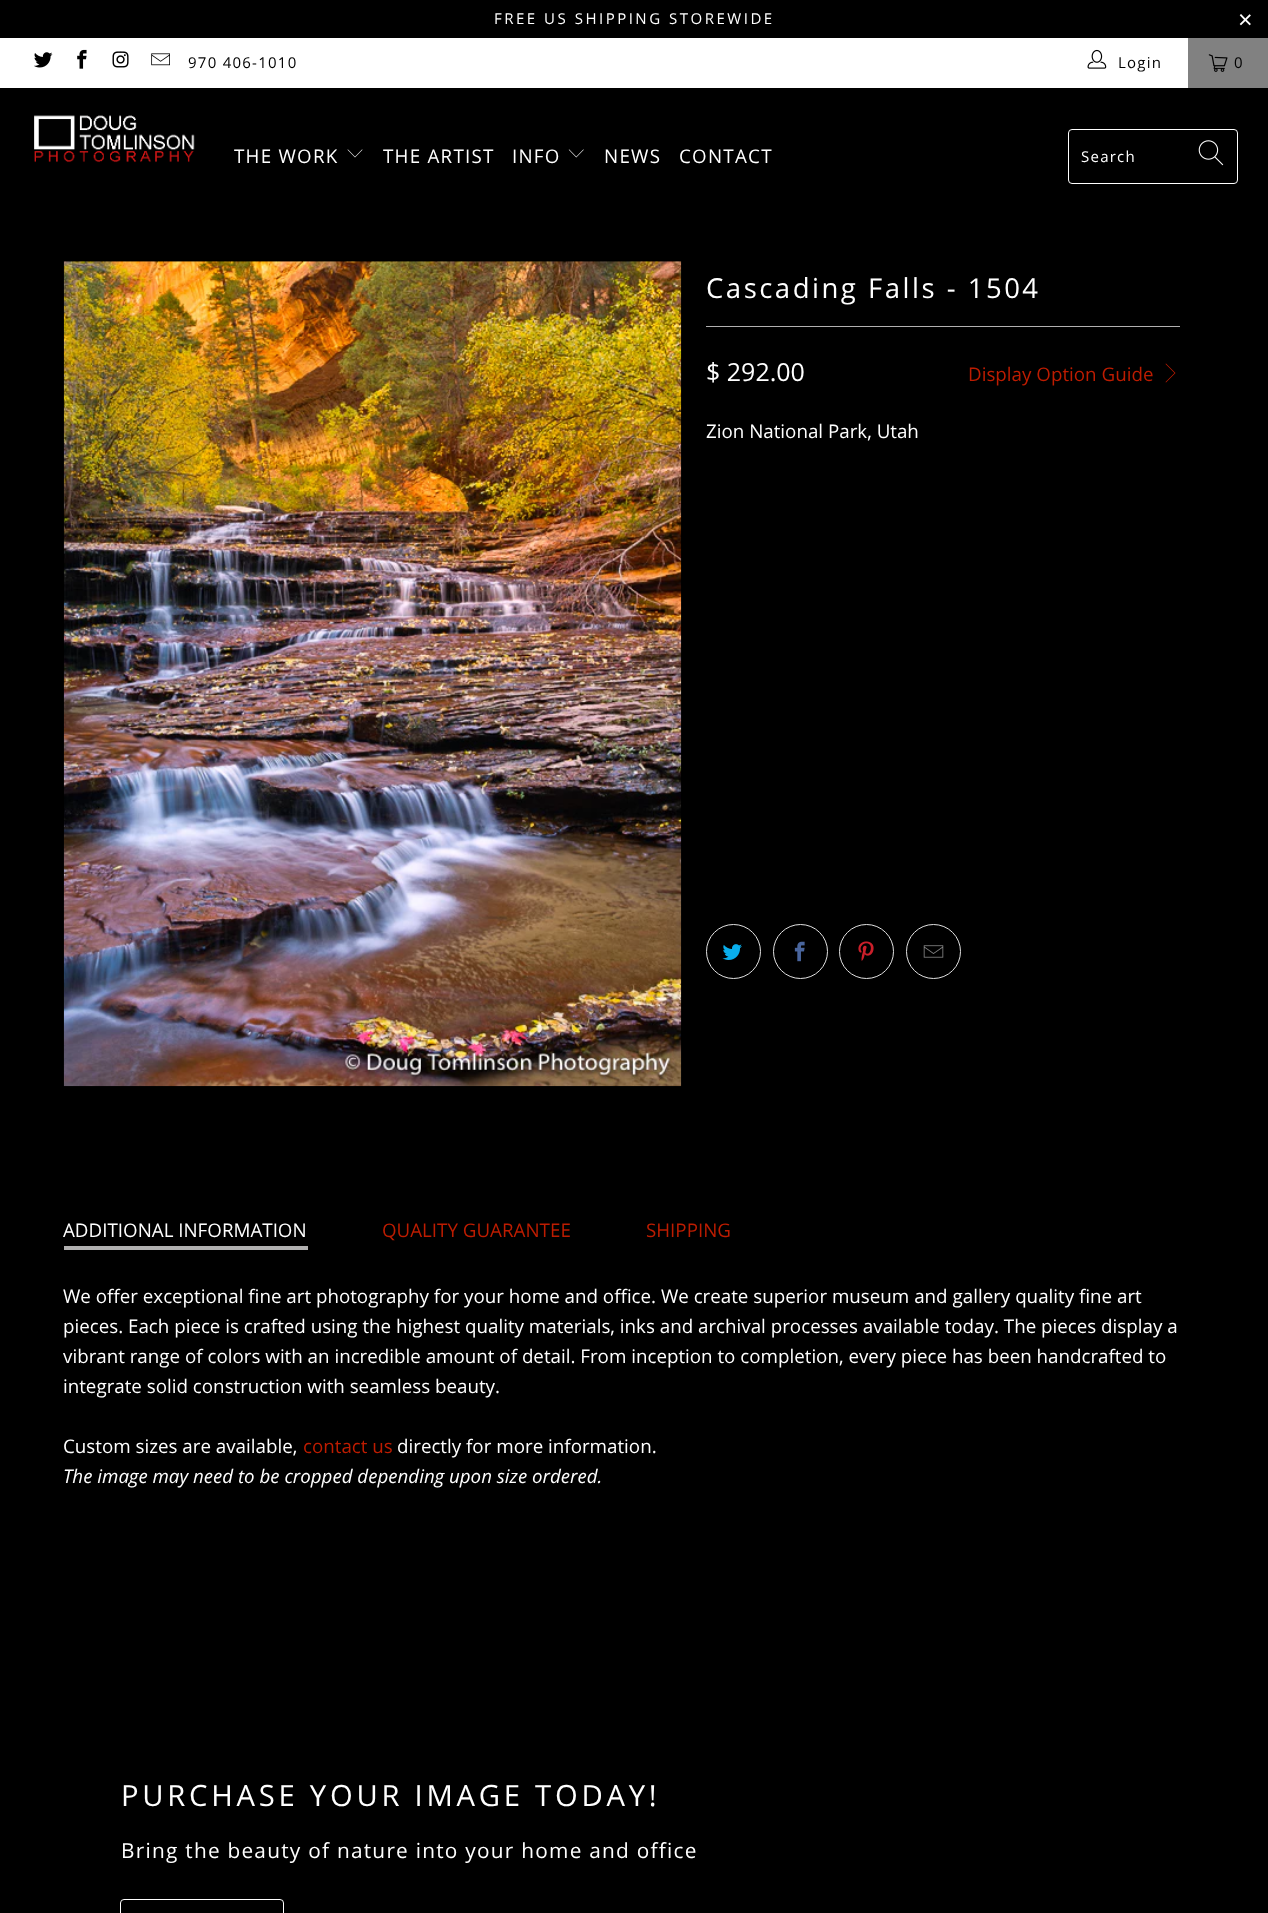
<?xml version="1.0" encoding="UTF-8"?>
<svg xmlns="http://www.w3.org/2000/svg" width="1268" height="1913">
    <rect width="100%" height="100%" fill="#000000"/>
    <text x="494" y="24" font-family="Open Sans" font-size="15" letter-spacing="2.5" fill="#FFFFFF">FREE US SHIPPING STOREWIDE</text>
    <text x="1238" y="28" font-family="Liberation Sans" font-size="25" letter-spacing="2.5" fill="#FFFFFF">×</text>
    <rect x="0" y="38" width="1188" height="50" fill="#FFFFFF"/>
    <image x="34" y="52" width="19" height="16" href="img_01.png"/>
    <image x="77" y="49" width="10" height="20" href="img_02.png"/>
    <image x="112" y="51" width="17" height="17" href="img_03.png"/>
    <image x="151" y="53" width="19" height="13" href="img_04.png"/>
    <text x="188" y="68" font-family="Open Sans" font-size="15" letter-spacing="1.25" fill="#000000">970 406-1010</text>
    <image x="1087" y="49" width="20" height="20" href="img_05.png"/>
    <text x="1118" y="68" font-family="Open Sans" font-size="15" letter-spacing="1.25" fill="#000000">Login</text>
    <rect x="1188" y="38" width="80" height="50" fill="#818181"/>
    <image x="1208" y="54" width="20" height="18" href="img_06.png"/>
    <text x="1234" y="68" font-family="Open Sans" font-size="15" letter-spacing="1.25" fill="#000000">0</text>
    <image x="34" y="115" width="161" height="48" href="img_07.png"/>
    <text x="234" y="163" font-family="Open Sans" font-size="18.75" letter-spacing="1.25" fill="#FFFFFF">THE WORK</text>
    <image x="347" y="149" width="16" height="9" href="img_08.png"/>
    <text x="383" y="163" font-family="Open Sans" font-size="18.75" letter-spacing="1.25" fill="#FFFFFF">THE ARTIST</text>
    <text x="512" y="163" font-family="Open Sans" font-size="18.75" letter-spacing="1.25" fill="#FFFFFF">INFO</text>
    <image x="568" y="149" width="16" height="9" href="img_09.png"/>
    <text x="604" y="163" font-family="Open Sans" font-size="18.75" letter-spacing="1.25" fill="#FFFFFF">NEWS</text>
    <text x="679" y="163" font-family="Open Sans" font-size="18.75" letter-spacing="1.25" fill="#FFFFFF">CONTACT</text>
    <rect x="1068.5" y="129.5" width="169" height="54" rx="3.5" fill="none" stroke="#FFFFFF"/>
    <text x="1081" y="162" font-family="Open Sans" font-size="15" letter-spacing="1.25" fill="#FFFFFF">Search</text>
    <image x="1198" y="140" width="26" height="26" href="img_10.png"/>
    <image x="63" y="261" width="619" height="826" href="img_11.png"/>
    <text x="706" y="298" font-family="Open Sans" font-size="27.5" letter-spacing="2.5" fill="#FFFFFF">Cascading Falls - 1504</text>
    <rect x="706" y="326" width="474" height="1" fill="#B1B0B0"/>
    <text x="706" y="381" font-family="Open Sans" font-size="25" fill="#FFFFFF">$ 292.00</text>
    <text x="968" y="381" font-family="Open Sans" font-size="18.75" fill="#BD1C01">Display Option Guide</text>
    <path d="M 1166 382.5 L 1165.5 382 L 1174.5 373 L 1165.5 364 L 1166 363.5 L 1175.5 373 Z" fill="#BD1C01"/>
    <text x="706" y="438" font-family="Open Sans" font-size="18.75" fill="#FFFFFF">Zion National Park, Utah</text>
    <circle cx="733.5" cy="951.5" r="27" fill="none" stroke="#E2E2E2"/>
    <image x="722" y="944" width="20" height="16" href="img_12.png"/>
    <circle cx="800.5" cy="951.5" r="27" fill="none" stroke="#E2E2E2"/>
    <image x="794" y="941" width="11" height="21" href="img_13.png"/>
    <circle cx="866.5" cy="951.5" r="27" fill="none" stroke="#E2E2E2"/>
    <image x="858" y="941" width="16" height="20" href="img_14.png"/>
    <circle cx="933.5" cy="951.5" r="27" fill="none" stroke="#E2E2E2"/>
    <image x="923" y="945" width="21" height="13" href="img_15.png"/>
    <rect x="64" y="1246" width="244" height="4" fill="#B1B0B0"/>
    <text x="63" y="1237" font-family="Open Sans" font-size="18.75" fill="#FFFFFF">ADDITIONAL INFORMATION</text>
    <text x="382" y="1237" font-family="Open Sans" font-size="18.75" fill="#BD1C01">QUALITY GUARANTEE</text>
    <text x="646" y="1237" font-family="Open Sans" font-size="18.75" fill="#BD1C01">SHIPPING</text>
    <text font-family="Open Sans" font-size="18.75" fill="#FFFFFF">
        <tspan x="63" y="1303">We offer exceptional fine art photography for your home and office. We create superior museum and gallery quality fine art</tspan>
        <tspan x="63" y="1333">pieces. Each piece is crafted using the highest quality materials, inks and archival processes available today. The pieces display a</tspan>
        <tspan x="63" y="1363">vibrant range of colors with an incredible amount of detail. From inception to completion, every piece has been handcrafted to</tspan>
        <tspan x="63" y="1393">integrate solid construction with seamless beauty.</tspan>
    </text>
    <text x="63" y="1453" font-family="Open Sans" font-size="18.75" fill="#FFFFFF">Custom sizes are available,</text>
    <text x="303" y="1453" font-family="Open Sans" font-size="18.75" fill="#BD1C01">contact us</text>
    <text x="397" y="1453" font-family="Open Sans" font-size="18.75" fill="#FFFFFF">directly for more information.</text>
    <text x="63" y="1483" font-family="Open Sans" font-size="18.75" font-style="italic" fill="#FFFFFF">The image may need to be cropped depending upon size ordered.</text>
    <text x="121" y="1806" font-family="Open Sans" font-size="29.2" letter-spacing="3.75" fill="#FFFFFF">PURCHASE YOUR IMAGE TODAY!</text>
    <text x="121" y="1858" font-family="Open Sans" font-size="20.8" letter-spacing="1.25" fill="#FFFFFF">Bring the beauty of nature into your home and office</text>
    <rect x="120.5" y="1899.5" width="163" height="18" rx="3.5" fill="none" stroke="#FFFFFF"/>
</svg>
